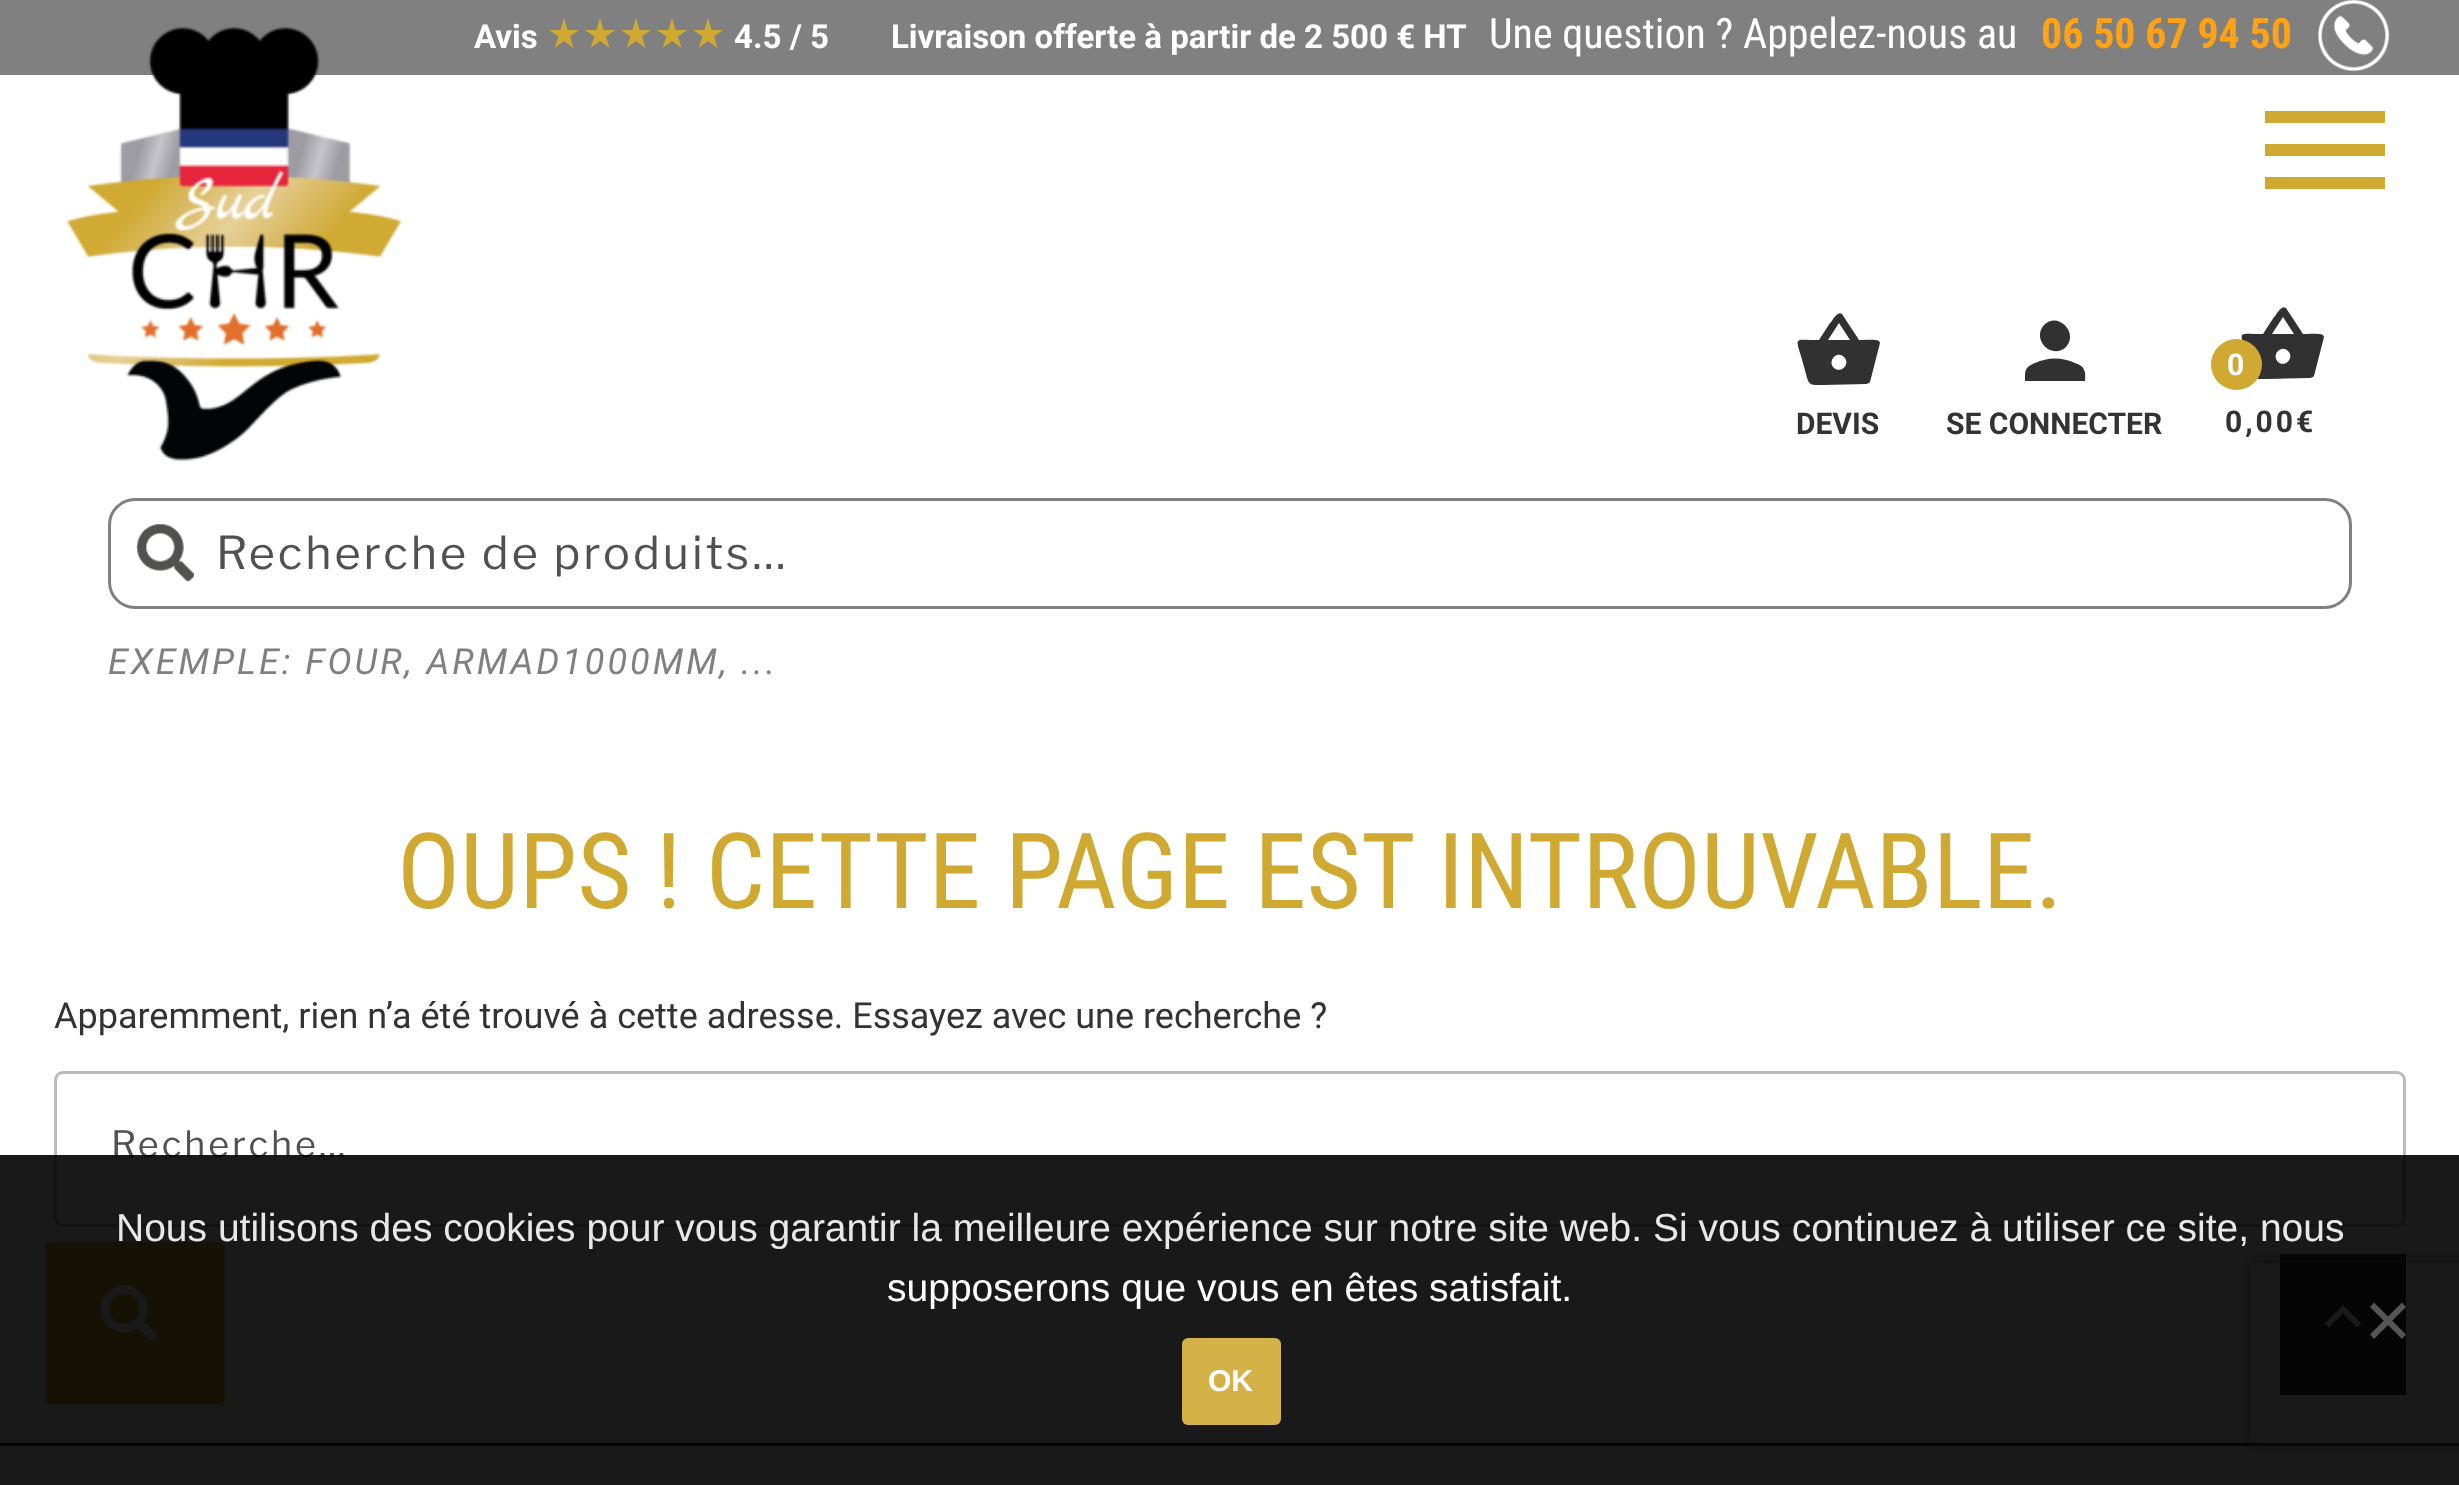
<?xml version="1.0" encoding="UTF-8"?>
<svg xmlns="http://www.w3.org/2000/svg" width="2459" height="1485">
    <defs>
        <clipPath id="clip1"><path d="M 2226 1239 H 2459 V 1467 H 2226 Z M 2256 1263 H 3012 C 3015.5 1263 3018 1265.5 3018 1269 V 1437 C 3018 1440.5 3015.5 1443 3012 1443 H 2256 C 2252.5 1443 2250 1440.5 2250 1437 V 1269 C 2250 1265.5 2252.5 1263 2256 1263 Z" clip-rule="evenodd"/></clipPath>
        <filter id="blur1" x="-50%" y="-200%" width="200%" height="500%"><feGaussianBlur stdDeviation="7.5"/></filter>
    </defs>
    <rect width="100%" height="100%" fill="#FFFFFF"/>
    <rect x="0" y="0" width="2459" height="75" fill="#808080"/>
    <image x="66" y="26" width="336" height="436" href="img_01.png"/>
    <text x="474" y="48" font-family="Roboto" font-size="33" font-weight="700" fill="#FFFFFF">Avis</text>
    <path d="M 567.5 30 L 564 18 L 560.5 30 H 549 L 558.5 36.5 L 554.5 48 L 564 41 L 573.5 48 L 570 36.5 L 579 30 Z" fill="#CFA932"/>
    <path d="M 603.5 30 L 600 18 L 596.5 30 H 585 L 594.5 36.5 L 590.5 48 L 600 41 L 609.5 48 L 606 36.5 L 615 30 Z" fill="#CFA932"/>
    <path d="M 639.5 30 L 636 18 L 632.5 30 H 621 L 630.5 36.5 L 626.5 48 L 636 41 L 645.5 48 L 642 36.5 L 651 30 Z" fill="#CFA932"/>
    <path d="M 675.5 30 L 672 18 L 668.5 30 H 657 L 666.5 36.5 L 662.5 48 L 672 41 L 681.5 48 L 678 36.5 L 687 30 Z" fill="#CFA932"/>
    <path d="M 711.5 30 L 708 18 L 704.5 30 H 693 L 702.5 36.5 L 698.5 48 L 708 41 L 717.5 48 L 714 36.5 L 723 30 Z" fill="#CFA932"/>
    <text x="734" y="48" font-family="Roboto" font-size="33" font-weight="700" fill="#FFFFFF">4.5 / 5</text>
    <text x="891" y="48" font-family="Roboto" font-size="33" font-weight="700" fill="#FFFFFF">Livraison offerte à partir de 2 500 € HT</text>
    <text x="1489" y="48" font-family="Roboto Condensed" font-size="42" fill="#FFFFFF">Une question ? Appelez-nous au</text>
    <text x="2041" y="48" font-family="Roboto Condensed" font-size="42" font-weight="700" fill="#FFA216">06 50 67 94 50</text>
    <image x="2318" y="0" width="72" height="71" href="img_02.png"/>
    <path d="M 1834 368 C 1841 374 1851 364 1844 357 C 1837 350 1827 361 1834 368 Z M 1828 340 H 1850 L 1839 323 Z M 1859 340 C 1862 340 1877 339 1879 341 L 1880 343 L 1870 382 C 1869 383 1867 384 1866 384 L 1823 385 C 1810 385 1809 386 1806 374 L 1801 356 C 1795 336 1795 340 1819 340 L 1830 323 C 1832 322 1837 310 1842 314 Z" fill="#313131"/>
    <text x="1796" y="434" font-family="Roboto" font-size="30" font-weight="700" fill="#333333">DEVIS</text>
    <path d="M 2035 363 C 2048 357 2062 357 2075 363 C 2078 364 2083 366 2084 370 C 2086 373 2085 378 2085 381 H 2025 C 2025 371 2024 367 2035 363 Z M 2066 347 C 2052 360 2031 340 2044 325 C 2058 311 2079 333 2066 347 Z" fill="#313131"/>
    <text x="1946" y="434" font-family="Roboto" font-size="30" font-weight="700" fill="#333333">SE CONNECTER</text>
    <path d="M 2278 362 C 2285 368 2295 358 2288 351 C 2281 344 2271 355 2278 362 Z M 2272 334 H 2294 L 2283 317 Z M 2303 334 C 2306 334 2321 333 2323 335 L 2324 337 L 2314 376 C 2313 377 2311 378 2310 378 L 2267 379 C 2254 379 2253 380 2250 368 L 2245 350 C 2239 330 2239 334 2263 334 L 2274 317 C 2276 316 2281 304 2286 308 Z" fill="#313131"/>
    <circle cx="2236.5" cy="364.5" r="25.5" fill="#CFA932"/>
    <text x="2227" y="375" font-family="Roboto" font-size="30" font-weight="700" letter-spacing="3" fill="#FFFFFF">0</text>
    <text x="2225" y="432" font-family="Roboto" font-size="30" font-weight="700" letter-spacing="3" fill="#333333">0,00€</text>
    <rect x="109.5" y="499.5" width="2241" height="108" rx="25.5" fill="none" stroke="#808080" stroke-width="3"/>
    <image x="136" y="524" width="58" height="58" href="img_03.png"/>
    <text x="216" y="569" font-family="Libre Franklin" font-size="45" font-weight="100" letter-spacing="3" fill="#515151">Recherche de produits…</text>
    <text x="108" y="674" font-family="Roboto" font-size="36" font-style="italic" letter-spacing="3" fill="#808080">EXEMPLE: FOUR, ARMAD1000MM, ...</text>
    <rect x="2265" y="111" width="120" height="12" fill="#CFA932"/>
    <rect x="2265" y="144" width="120" height="12" fill="#CFA932"/>
    <rect x="2265" y="177" width="120" height="12" fill="#CFA932"/>
    <text x="397" y="908" font-family="Roboto Condensed" font-size="105" fill="#CFA932">OUPS ! CETTE PAGE EST INTROUVABLE.</text>
    <text x="54" y="1028" font-family="Roboto" font-size="36" fill="#333333">Apparemment, rien n’a été trouvé à cette adresse. Essayez avec une recherche ?</text>
    <rect x="55.5" y="1072.5" width="2349" height="153" rx="7.5" fill="none" stroke="#BBBBBB" stroke-width="3"/>
    <text x="111" y="1157" font-family="Libre Franklin" font-size="36" font-weight="100" letter-spacing="3" fill="#515151">Recherche…</text>
    <rect x="45" y="1242" width="180" height="162" rx="6" fill="#CFA932"/>
    <image x="100" y="1285" width="57" height="56" href="img_04.png"/>
    <rect x="2280" y="1254" width="126" height="141" fill="#313131"/>
    <path d="M 2329 1327.5 L 2325 1323 L 2343 1305 L 2361 1323 L 2357 1327.5 L 2343 1313.5 Z" fill="#FFFFFF"/>
    <rect x="0" y="1443" width="2459" height="3" fill="#313131"/>
    <g clip-path="url(#clip1)">
        <rect x="2250" y="1263" width="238" height="180" rx="6" fill="#808080" filter="url(#blur1)"/>
    </g>
    <rect x="0" y="1155" width="2459" height="330" fill="#000000" fill-opacity="0.9"/>
    <text x="116" y="1241" font-family="Liberation Sans" font-size="39" fill="#E8E8E8">Nous utilisons des cookies pour vous garantir la meilleure expérience sur notre site web. Si vous continuez à utiliser ce site, nous</text>
    <text x="887" y="1301" font-family="Liberation Sans" font-size="39" fill="#FFFFFF">supposerons que vous en êtes satisfait.</text>
    <path d="M 2402 1302.5 L 2406 1307 L 2374 1339 L 2370 1334.5 Z" fill="#555555"/>
    <path d="M 2370 1307 L 2374 1302.5 L 2406 1334.5 L 2402 1339 Z" fill="#555555"/>
    <rect x="1182" y="1338" width="99" height="87" rx="6" fill="#D4B247"/>
    <text x="1208" y="1391" font-family="Liberation Sans" font-size="30" font-weight="700" fill="#FFFFFF">OK</text>
</svg>
